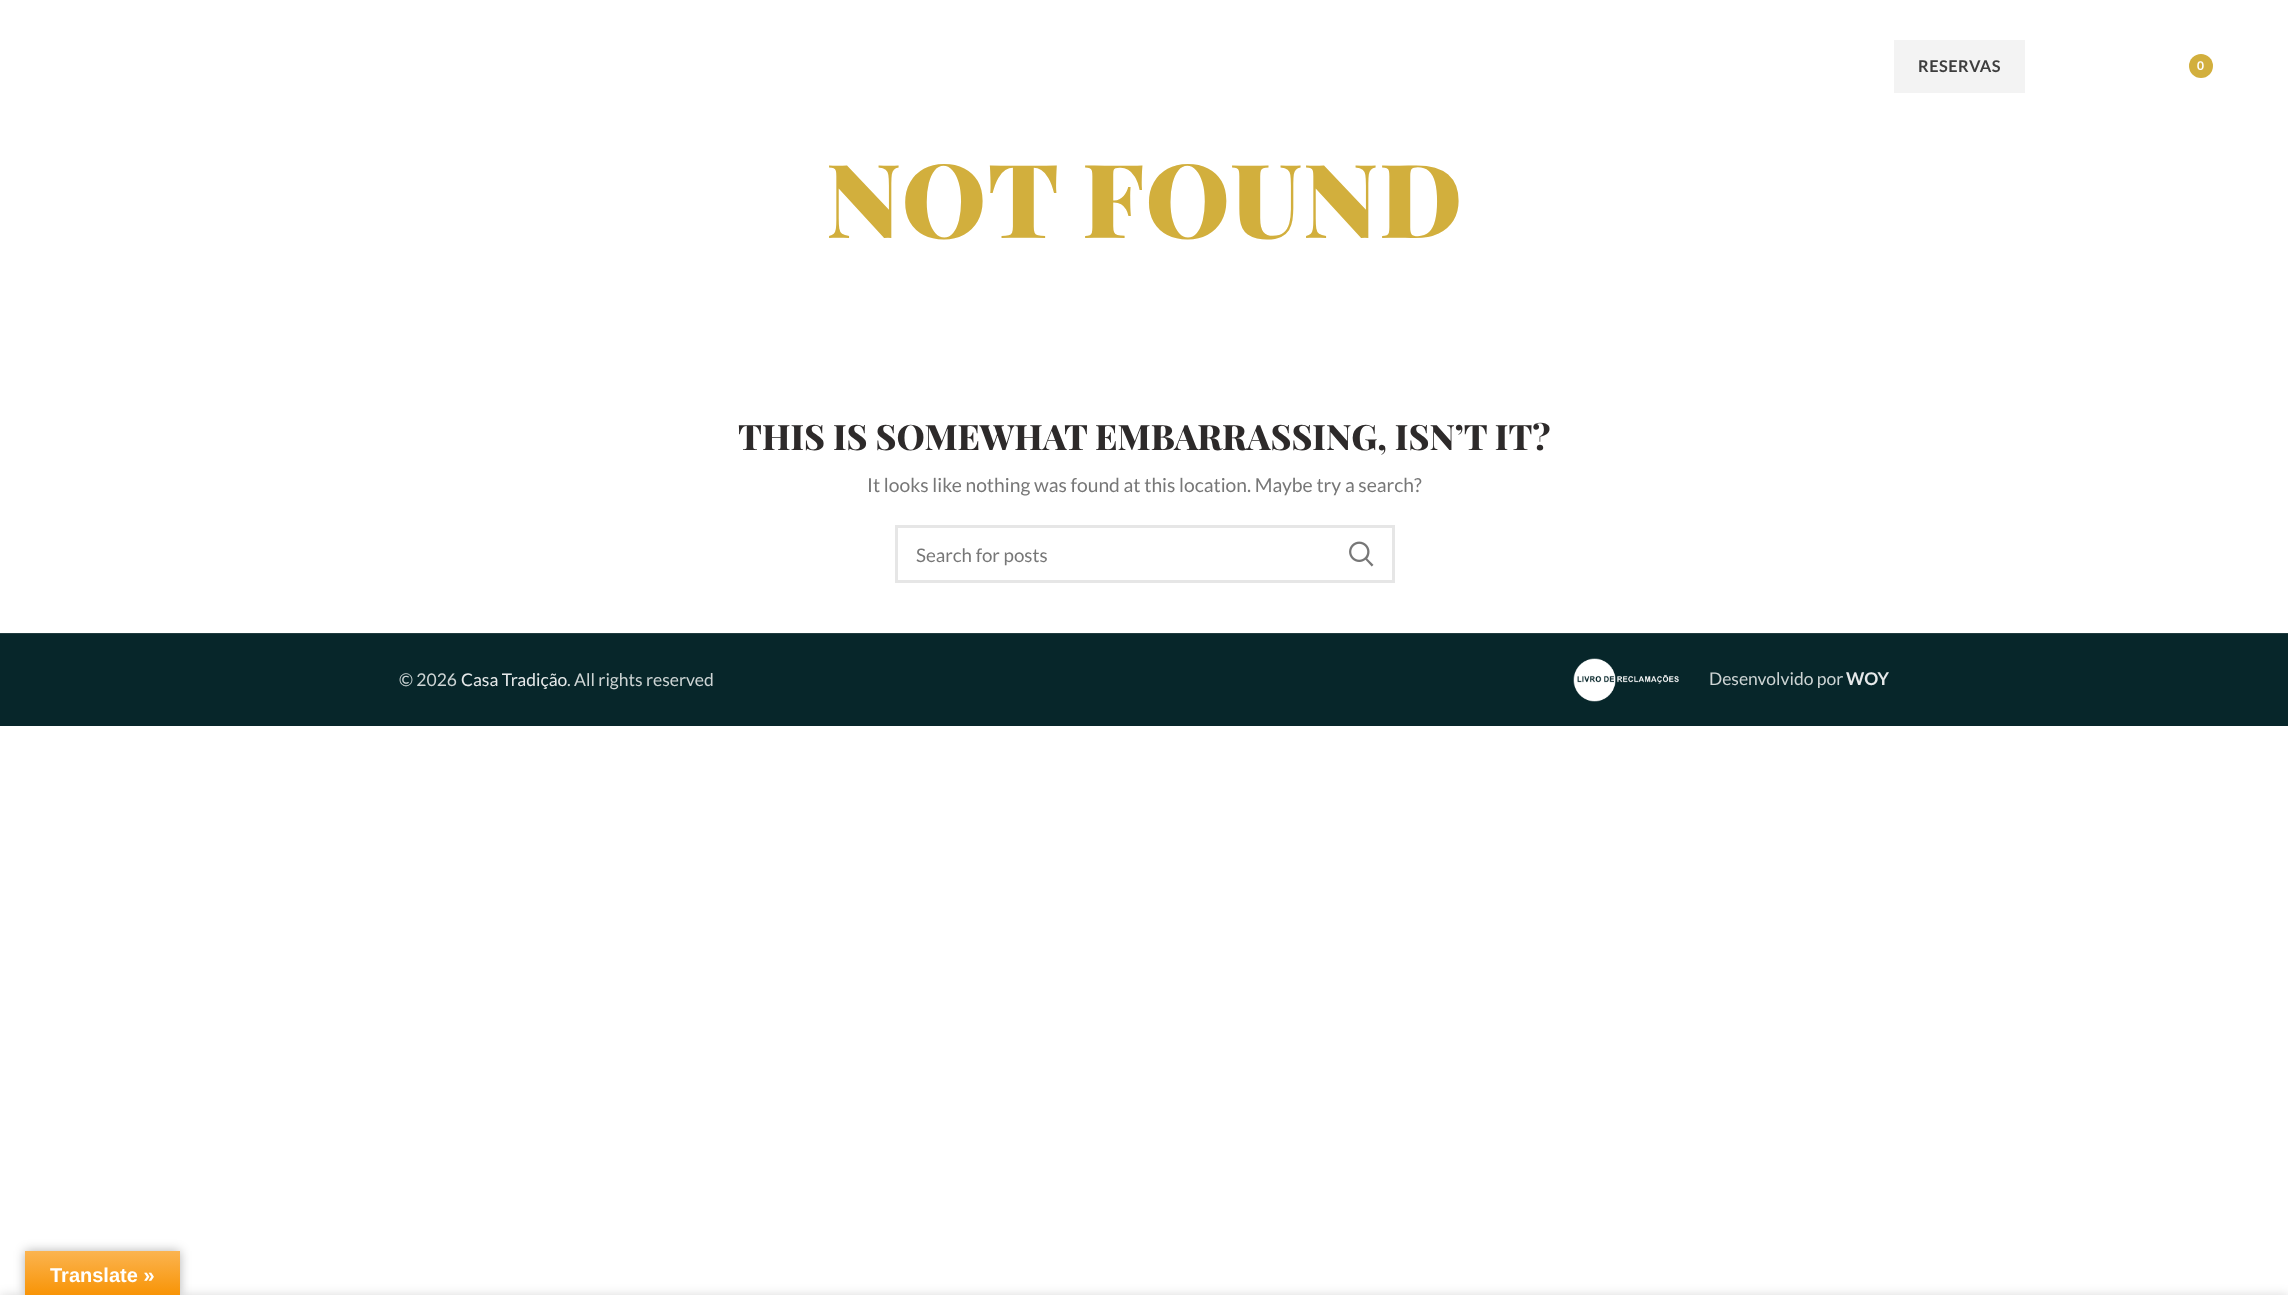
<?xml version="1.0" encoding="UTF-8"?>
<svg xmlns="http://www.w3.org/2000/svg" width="2288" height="1295">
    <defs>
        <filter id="blur1" x="-50%" y="-200%" width="200%" height="500%"><feGaussianBlur stdDeviation="5.5"/></filter>
        <linearGradient id="g1" gradientUnits="userSpaceOnUse" x1="103" y1="1251" x2="103" y2="1295"><stop offset="0" stop-color="#FBB450"/><stop offset="1" stop-color="#F89406"/></linearGradient>
    </defs>
    <rect width="100%" height="100%" fill="#FFFFFF"/>
    <rect x="1894" y="40" width="131" height="53" fill="#F3F3F3"/>
    <text x="1918" y="72" font-family="Lato" font-size="16.25" font-weight="700" letter-spacing="0.5" fill="#3E3E3E">RESERVAS</text>
    <circle cx="2201" cy="66" r="12" fill="#D2AF3D"/>
    <text x="2197" y="70" font-family="Lato" font-size="12" font-weight="700" fill="#FFFFFF">0</text>
    <text x="826" y="238" font-family="Playfair Display" font-size="102.5" font-weight="900" letter-spacing="1.25" fill="#D2AF3D">NOT FOUND</text>
    <text x="738" y="450" font-family="Playfair Display" font-size="35" font-weight="800" fill="#2D2A2A">THIS IS SOMEWHAT EMBARRASSING, ISN’T IT?</text>
    <text x="867" y="492" font-family="Lato" font-size="19.25" fill="#777777">It looks like nothing was found at this location. Maybe try a search?</text>
    <rect x="896.5" y="526.5" width="497" height="55" fill="none" stroke="#E6E6E6" stroke-width="3"/>
    <text x="916" y="562" font-family="Lato" font-size="18.75" fill="#777777">Search for posts</text>
    <image x="1349" y="541" width="25" height="26" href="img_01.png"/>
    <rect x="0" y="634" width="2288" height="92" fill="#07262A"/>
    <rect x="0" y="633" width="2288" height="1" fill="#203C3F"/>
    <text x="399" y="686" font-family="Lato" font-size="17.5" fill="#CDD4D4">© 2026</text>
    <text x="461" y="686" font-family="Lato" font-size="17.5" fill="#E6E9EA">Casa Tradição</text>
    <text x="567" y="686" font-family="Lato" font-size="17.5" fill="#CDD4D4">. All rights reserved</text>
    <image x="1573" y="658" width="106" height="44" href="img_02.png"/>
    <text x="1709" y="685" font-family="Lato" font-size="17.5" fill="#CDD4D4">Desenvolvido por</text>
    <text x="1846" y="685" font-family="Lato" font-size="17.5" font-weight="700" fill="#E6E9EA">WOY</text>
    <rect x="25" y="1251" width="155" height="44" fill="#000000" fill-opacity="0.3" filter="url(#blur1)"/>
    <rect x="0" y="1295" width="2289" height="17" fill="#000000" fill-opacity="0.14" filter="url(#blur1)"/>
    <rect x="25" y="1251" width="155" height="44" fill="url(#g1)"/>
    <text x="50" y="1282" font-family="Liberation Sans" font-size="20" font-weight="700" fill="#FFFFFF">Translate »</text>
</svg>
